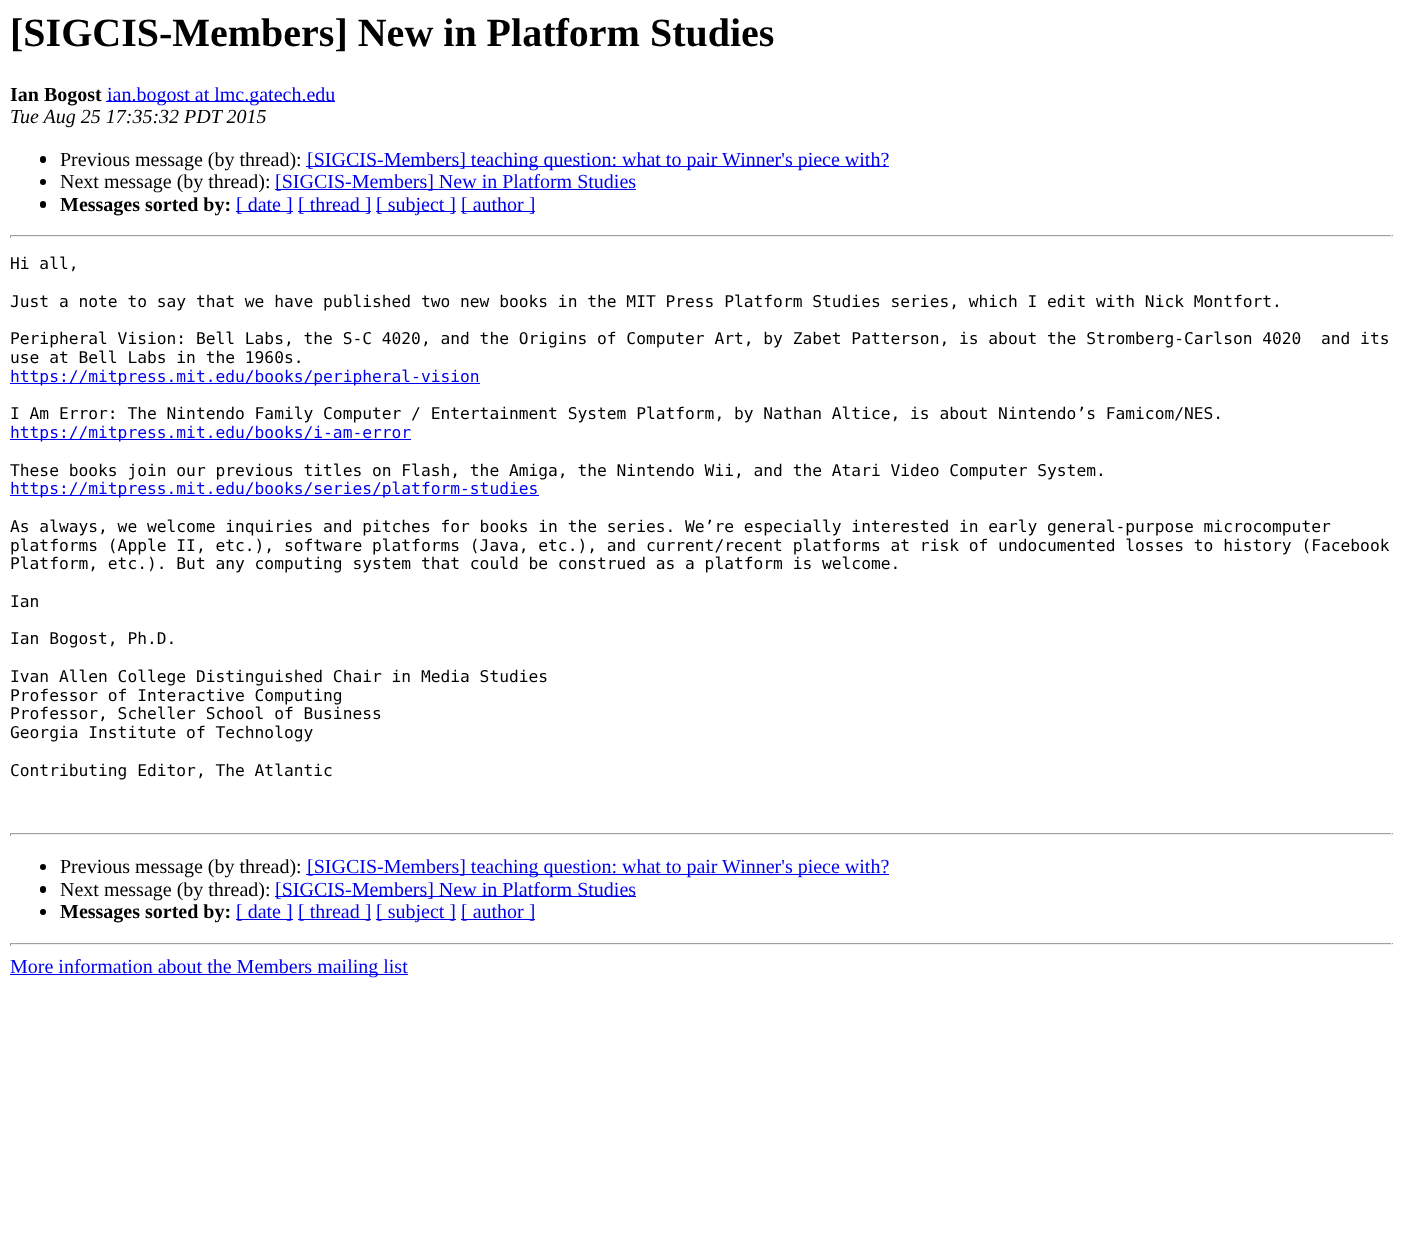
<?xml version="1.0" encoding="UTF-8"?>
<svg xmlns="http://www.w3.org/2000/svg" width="1402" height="1239">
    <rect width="100%" height="100%" fill="#FFFFFF"/>
    <text x="10" y="46" font-family="Liberation Serif" font-size="40" font-weight="700" fill="#000000">[SIGCIS-Members] New in Platform Studies</text>
    <text x="10" y="101" font-family="Liberation Serif" font-size="20" font-weight="700" fill="#000000">Ian Bogost</text>
    <rect x="106" y="101" width="229" height="1" fill="#0000EE"/>
    <text x="107" y="101" font-family="Liberation Serif" font-size="20" fill="#0000EE">ian.bogost at lmc.gatech.edu</text>
    <text x="10" y="123" font-family="Liberation Serif" font-size="20" font-style="italic" fill="#000000">Tue Aug 25 17:35:32 PDT 2015</text>
    <rect x="40" y="156" width="6" height="7" rx="3" fill="#000000"/>
    <text x="60" y="166" font-family="Liberation Serif" font-size="20" fill="#000000">Previous message (by thread):</text>
    <rect x="306" y="166" width="583" height="1" fill="#0000EE"/>
    <text x="307" y="166" font-family="Liberation Serif" font-size="20" fill="#0000EE">[SIGCIS-Members] teaching question: what to pair Winner's piece with?</text>
    <circle cx="43" cy="182" r="3" fill="#000000"/>
    <text x="60" y="188" font-family="Liberation Serif" font-size="20" fill="#000000">Next message (by thread):</text>
    <rect x="275" y="189" width="361" height="1" fill="#0000EE"/>
    <text x="275" y="188" font-family="Liberation Serif" font-size="20" fill="#0000EE">[SIGCIS-Members] New in Platform Studies</text>
    <rect x="40" y="201" width="6" height="7" rx="3" fill="#000000"/>
    <text x="60" y="211" font-family="Liberation Serif" font-size="20" font-weight="700" fill="#000000">Messages sorted by:</text>
    <rect x="236" y="211" width="57" height="1" fill="#0000EE"/>
    <text x="236" y="211" font-family="Liberation Serif" font-size="20" fill="#0000EE">[ date ]</text>
    <rect x="298" y="211" width="73" height="1" fill="#0000EE"/>
    <text x="298" y="211" font-family="Liberation Serif" font-size="20" fill="#0000EE">[ thread ]</text>
    <rect x="376" y="211" width="80" height="1" fill="#0000EE"/>
    <text x="376" y="211" font-family="Liberation Serif" font-size="20" fill="#0000EE">[ subject ]</text>
    <rect x="461" y="211" width="74" height="1" fill="#0000EE"/>
    <text x="461" y="211" font-family="Liberation Serif" font-size="20" fill="#0000EE">[ author ]</text>
    <rect x="10" y="235" width="1383" height="1" fill="#9F9F9F"/>
    <rect x="1391" y="235" width="1" height="3" fill="#EEEEEE"/>
    <rect x="10" y="236" width="1383" height="1" fill="#EEEEEE"/>
    <rect x="10" y="235" width="1" height="3" fill="#9F9F9F"/>
    <text x="10" y="269" font-family="DejaVu Sans Mono" font-size="16.25" fill="#000000">Hi all,</text>
    <text x="10" y="307" font-family="DejaVu Sans Mono" font-size="16.25" fill="#000000">Just a note to say that we have published two new books in the MIT Press Platform Studies series, which I edit with Nick Montfort.</text>
    <text font-family="DejaVu Sans Mono" font-size="16.25" fill="#000000" xml:space="preserve"><tspan x="10" y="344">Peripheral Vision: Bell Labs, the S-C 4020, and the Origins of Computer Art, by Zabet Patterson, is about the Stromberg-Carlson 4020  and its</tspan><tspan x="10" y="363">use at Bell Labs in the 1960s.</tspan></text>
    <rect x="10" y="383" width="470" height="1" fill="#0000EE"/>
    <text x="10" y="382" font-family="DejaVu Sans Mono" font-size="16.25" fill="#0000EE">https://mitpress.mit.edu/books/peripheral-vision</text>
    <text x="10" y="419" font-family="DejaVu Sans Mono" font-size="16.25" fill="#000000">I Am Error: The Nintendo Family Computer / Entertainment System Platform, by Nathan Altice, is about Nintendo’s Famicom/NES.</text>
    <rect x="10" y="439" width="401" height="1" fill="#0000EE"/>
    <text x="10" y="438" font-family="DejaVu Sans Mono" font-size="16.25" fill="#0000EE">https://mitpress.mit.edu/books/i-am-error</text>
    <text x="10" y="476" font-family="DejaVu Sans Mono" font-size="16.25" fill="#000000">These books join our previous titles on Flash, the Amiga, the Nintendo Wii, and the Atari Video Computer System.</text>
    <rect x="10" y="495" width="529" height="1" fill="#0000EE"/>
    <text x="10" y="494" font-family="DejaVu Sans Mono" font-size="16.25" fill="#0000EE">https://mitpress.mit.edu/books/series/platform-studies</text>
    <text font-family="DejaVu Sans Mono" font-size="16.25" fill="#000000">
        <tspan x="10" y="532">As always, we welcome inquiries and pitches for books in the series. We’re especially interested in early general-purpose microcomputer</tspan>
        <tspan x="10" y="551">platforms (Apple II, etc.), software platforms (Java, etc.), and current/recent platforms at risk of undocumented losses to history (Facebook</tspan>
        <tspan x="10" y="569">Platform, etc.). But any computing system that could be construed as a platform is welcome.</tspan>
    </text>
    <text x="10" y="607" font-family="DejaVu Sans Mono" font-size="16.25" fill="#000000">Ian</text>
    <text x="10" y="644" font-family="DejaVu Sans Mono" font-size="16.25" fill="#000000">Ian Bogost, Ph.D.</text>
    <text font-family="DejaVu Sans Mono" font-size="16.25" fill="#000000">
        <tspan x="10" y="682">Ivan Allen College Distinguished Chair in Media Studies</tspan>
        <tspan x="10" y="701">Professor of Interactive Computing</tspan>
        <tspan x="10" y="719">Professor, Scheller School of Business</tspan>
        <tspan x="10" y="738">Georgia Institute of Technology</tspan>
    </text>
    <text x="10" y="776" font-family="DejaVu Sans Mono" font-size="16.25" fill="#000000">Contributing Editor, The Atlantic</text>
    <rect x="10" y="833" width="1383" height="1" fill="#9F9F9F"/>
    <rect x="1391" y="833" width="1" height="3" fill="#EEEEEE"/>
    <rect x="10" y="834" width="1383" height="1" fill="#EEEEEE"/>
    <rect x="10" y="833" width="1" height="3" fill="#9F9F9F"/>
    <circle cx="43" cy="867" r="3" fill="#000000"/>
    <text x="60" y="873" font-family="Liberation Serif" font-size="20" fill="#000000">Previous message (by thread):</text>
    <rect x="306" y="874" width="583" height="1" fill="#0000EE"/>
    <text x="307" y="873" font-family="Liberation Serif" font-size="20" fill="#0000EE">[SIGCIS-Members] teaching question: what to pair Winner's piece with?</text>
    <rect x="40" y="886" width="6" height="7" rx="3" fill="#000000"/>
    <text x="60" y="896" font-family="Liberation Serif" font-size="20" fill="#000000">Next message (by thread):</text>
    <rect x="275" y="896" width="361" height="1" fill="#0000EE"/>
    <text x="275" y="896" font-family="Liberation Serif" font-size="20" fill="#0000EE">[SIGCIS-Members] New in Platform Studies</text>
    <circle cx="43" cy="912" r="3" fill="#000000"/>
    <text x="60" y="918" font-family="Liberation Serif" font-size="20" font-weight="700" fill="#000000">Messages sorted by:</text>
    <rect x="236" y="919" width="57" height="1" fill="#0000EE"/>
    <text x="236" y="918" font-family="Liberation Serif" font-size="20" fill="#0000EE">[ date ]</text>
    <rect x="298" y="919" width="73" height="1" fill="#0000EE"/>
    <text x="298" y="918" font-family="Liberation Serif" font-size="20" fill="#0000EE">[ thread ]</text>
    <rect x="376" y="919" width="80" height="1" fill="#0000EE"/>
    <text x="376" y="918" font-family="Liberation Serif" font-size="20" fill="#0000EE">[ subject ]</text>
    <rect x="461" y="919" width="74" height="1" fill="#0000EE"/>
    <text x="461" y="918" font-family="Liberation Serif" font-size="20" fill="#0000EE">[ author ]</text>
    <rect x="10" y="943" width="1383" height="1" fill="#9F9F9F"/>
    <rect x="1391" y="943" width="1" height="3" fill="#EEEEEE"/>
    <rect x="10" y="944" width="1383" height="1" fill="#EEEEEE"/>
    <rect x="10" y="943" width="1" height="3" fill="#9F9F9F"/>
    <rect x="10" y="974" width="398" height="1" fill="#0000EE"/>
    <text x="10" y="973" font-family="Liberation Serif" font-size="20" fill="#0000EE">More information about the Members mailing list</text>
</svg>
